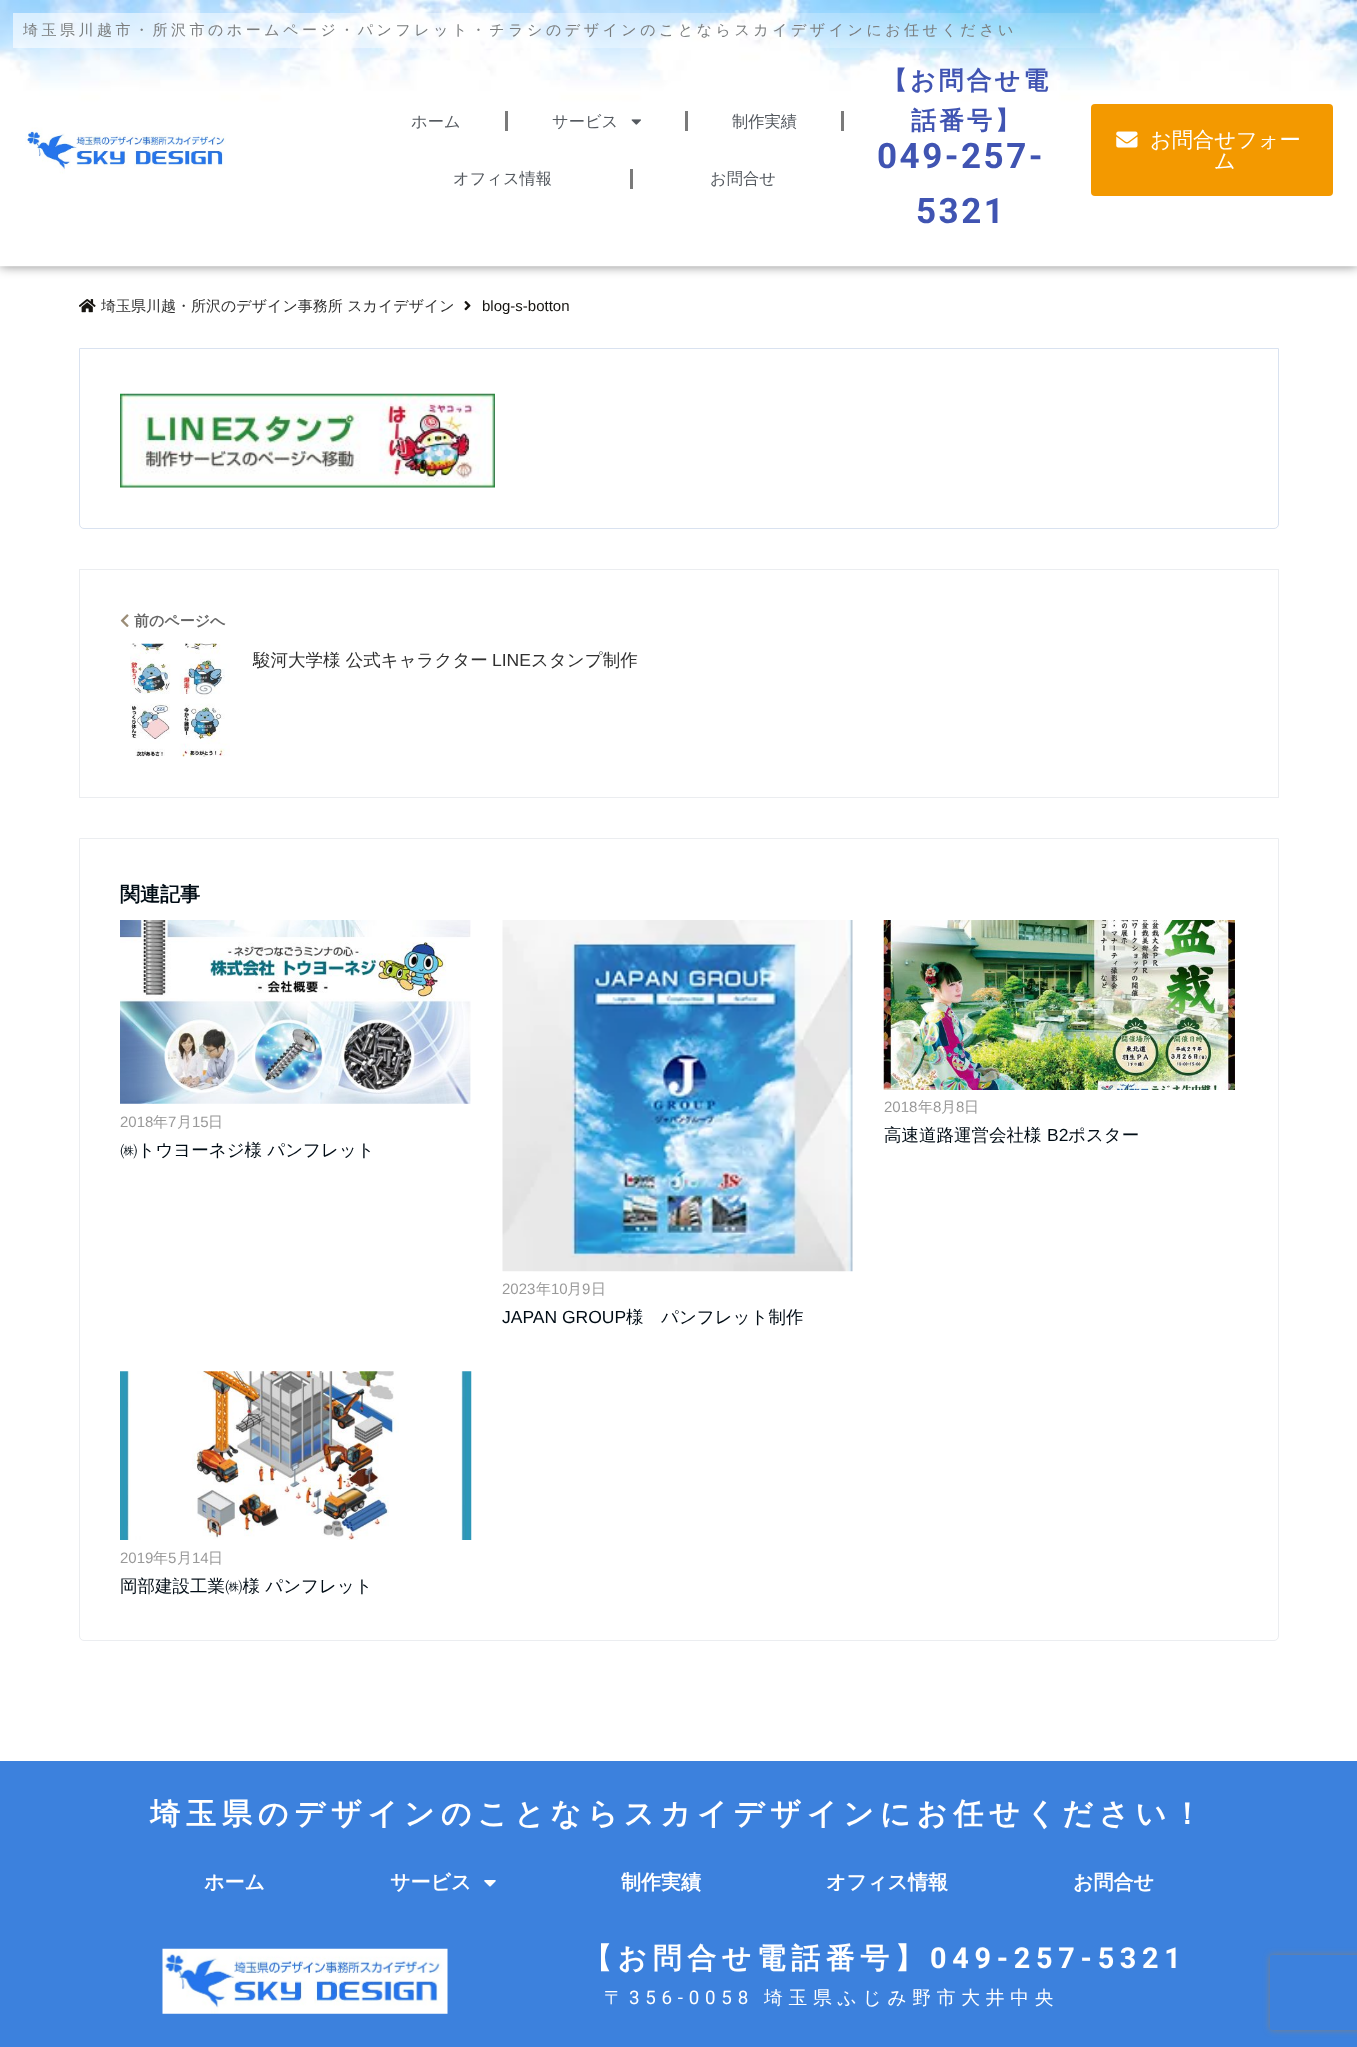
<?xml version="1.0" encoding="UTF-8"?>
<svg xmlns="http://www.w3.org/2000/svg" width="1357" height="2047">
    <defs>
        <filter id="blur1" x="-50%" y="-200%" width="200%" height="500%"><feGaussianBlur stdDeviation="6"/></filter>
        <clipPath id="clip1"><rect x="79" y="299" width="402" height="15"/></clipPath>
        <clipPath id="clip2"><path d="M 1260 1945 H 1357 V 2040 H 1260 Z M 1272.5 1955 H 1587.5 C 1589 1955 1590 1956 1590 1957.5 V 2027.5 C 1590 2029 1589 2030 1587.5 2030 H 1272.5 C 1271 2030 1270 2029 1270 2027.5 V 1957.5 C 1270 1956 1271 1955 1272.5 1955 Z" clip-rule="evenodd"/></clipPath>
        <filter id="blur2" x="-50%" y="-200%" width="200%" height="500%"><feGaussianBlur stdDeviation="3"/></filter>
    </defs>
    <rect width="100%" height="100%" fill="#FFFFFF"/>
    <rect x="0" y="0" width="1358" height="266" fill="#000000" fill-opacity="0.5" filter="url(#blur1)"/>
    <image x="0" y="0" width="1357" height="267" href="img_01.png"/>
    <text x="23" y="35" font-family="WenQuanYi Zen Hei" font-size="15" font-weight="500" letter-spacing="3.5" fill="#7A7D7E">埼玉県川越市・所沢市のホームページ・パンフレット・チラシのデザインのことならスカイデザインにお任せください</text>
    <image x="25" y="127" width="201" height="47" href="img_02.png"/>
    <text x="411" y="127" font-family="WenQuanYi Zen Hei" font-size="16.25" font-weight="500" fill="#54595F">ホーム</text>
    <rect x="505" y="111" width="3" height="20" fill="#7A7A7A"/>
    <text x="552" y="127" font-family="WenQuanYi Zen Hei" font-size="16.25" font-weight="500" fill="#54595F">サービス</text>
    <image x="631" y="119" width="10" height="6" href="img_03.png"/>
    <rect x="685" y="111" width="3" height="20" fill="#7A7A7A"/>
    <text x="732" y="127" font-family="WenQuanYi Zen Hei" font-size="16.25" font-weight="500" fill="#54595F">制作実績</text>
    <rect x="841" y="111" width="3" height="20" fill="#7A7A7A"/>
    <text x="453" y="184" font-family="WenQuanYi Zen Hei" font-size="16.25" font-weight="500" fill="#54595F">オフィス情報</text>
    <rect x="630" y="169" width="3" height="20" fill="#7A7A7A"/>
    <text x="710" y="184" font-family="WenQuanYi Zen Hei" font-size="16.25" font-weight="500" fill="#54595F">お問合せ</text>
    <text x="882" y="89" font-family="WenQuanYi Zen Hei" font-size="25" font-weight="700" letter-spacing="3" fill="#4054B2">【お問合せ電</text>
    <text x="911" y="129" font-family="WenQuanYi Zen Hei" font-size="25" font-weight="700" letter-spacing="3" fill="#4054B2">話番号】</text>
    <text x="877" y="168" font-family="Roboto" font-size="35" font-weight="700" letter-spacing="2.5" fill="#4054B2">049-257-</text>
    <text x="916" y="223" font-family="Roboto" font-size="35" font-weight="700" letter-spacing="2.5" fill="#4054B2">5321</text>
    <rect x="1091" y="104" width="242" height="92" rx="4" fill="#F39900"/>
    <image x="1116" y="131" width="22" height="17" href="img_04.png"/>
    <text x="1150" y="147" font-family="WenQuanYi Zen Hei" font-size="21.25" font-weight="500" fill="#FFFFFF">お問合せフォー</text>
    <text x="1214" y="168" font-family="WenQuanYi Zen Hei" font-size="21.25" font-weight="500" fill="#FFFFFF">ム</text>
    <image x="79" y="299" width="17" height="14" href="img_05.png"/>
    <g clip-path="url(#clip1)">
        <text x="101" y="311" font-family="WenQuanYi Zen Hei" font-size="15" font-weight="500" fill="#303030">埼玉県川越・所沢のデザイン事務所 スカイデザイン</text>
    </g>
    <image x="464" y="301" width="7" height="10" href="img_06.png"/>
    <text x="482" y="311" font-family="Liberation Sans" font-size="15" fill="#161410">blog-s-botton</text>
    <path d="M 79.5 348.5 H 1278.5 V 524 C 1278.5 526.5 1276.5 528.5 1274 528.5 H 84 C 81.5 528.5 79.5 526.5 79.5 524 Z" fill="none" stroke="#D9E2F0"/>
    <image x="120" y="393" width="375" height="95" href="img_07.png"/>
    <rect x="79.5" y="569.5" width="1199" height="228" fill="none" stroke="#EBEDF0"/>
    <image x="120" y="614" width="9" height="13" href="img_08.png"/>
    <text x="134" y="626" font-family="WenQuanYi Zen Hei" font-size="15" font-weight="700" fill="#666666">前のページへ</text>
    <image x="130" y="643" width="100" height="114" href="img_09.png"/>
    <text x="253" y="666" font-family="WenQuanYi Zen Hei" font-size="17.5" font-weight="500" fill="#303030">駿河大学様 公式キャラクター</text>
    <text x="492" y="666" font-family="Liberation Sans" font-size="17.5" fill="#303030">LINE</text>
    <text x="531" y="666" font-family="WenQuanYi Zen Hei" font-size="17.5" font-weight="500" fill="#303030">スタンプ制作</text>
    <path d="M 79.5 838.5 H 1278.5 V 1636 C 1278.5 1638.5 1276.5 1640.5 1274 1640.5 H 84 C 81.5 1640.5 79.5 1638.5 79.5 1636 Z" fill="none" stroke="#EBEDF0"/>
    <text x="120" y="901" font-family="WenQuanYi Zen Hei" font-size="20" font-weight="700" fill="#000C15">関連記事</text>
    <image x="120" y="920" width="351" height="184" href="img_10.png"/>
    <text x="120" y="1127" font-family="Liberation Sans" font-size="15" fill="#999999">2018</text>
    <text x="153" y="1127" font-family="WenQuanYi Zen Hei" font-size="15" font-weight="500" fill="#999999">年</text>
    <text x="168" y="1127" font-family="Liberation Sans" font-size="15" fill="#999999">7</text>
    <text x="177" y="1127" font-family="WenQuanYi Zen Hei" font-size="15" font-weight="500" fill="#999999">月</text>
    <text x="192" y="1127" font-family="Liberation Sans" font-size="15" fill="#999999">15</text>
    <text x="208" y="1127" font-family="WenQuanYi Zen Hei" font-size="15" font-weight="500" fill="#999999">日</text>
    <text x="120" y="1156" font-family="WenQuanYi Zen Hei" font-size="17.5" font-weight="500" fill="#000C15">㈱トウヨーネジ様 パンフレット</text>
    <image x="883" y="920" width="352" height="170" href="img_11.png"/>
    <text x="884" y="1112" font-family="Liberation Sans" font-size="15" fill="#999999">2018</text>
    <text x="918" y="1112" font-family="WenQuanYi Zen Hei" font-size="15" font-weight="500" fill="#999999">年</text>
    <text x="933" y="1112" font-family="Liberation Sans" font-size="15" fill="#999999">8</text>
    <text x="941" y="1112" font-family="WenQuanYi Zen Hei" font-size="15" font-weight="500" fill="#999999">月</text>
    <text x="956" y="1112" font-family="Liberation Sans" font-size="15" fill="#999999">8</text>
    <text x="964" y="1112" font-family="WenQuanYi Zen Hei" font-size="15" font-weight="500" fill="#999999">日</text>
    <text x="884" y="1141" font-family="WenQuanYi Zen Hei" font-size="17.5" font-weight="500" fill="#000C15">高速道路運営会社様</text>
    <text x="1047" y="1141" font-family="Liberation Sans" font-size="17.5" fill="#000C15">B2</text>
    <text x="1068" y="1141" font-family="WenQuanYi Zen Hei" font-size="17.5" font-weight="500" fill="#000C15">ポスター</text>
    <image x="502" y="920" width="351" height="352" href="img_12.png"/>
    <text x="502" y="1294" font-family="Liberation Sans" font-size="15" fill="#999999">2023</text>
    <text x="536" y="1294" font-family="WenQuanYi Zen Hei" font-size="15" font-weight="500" fill="#999999">年</text>
    <text x="551" y="1294" font-family="Liberation Sans" font-size="15" fill="#999999">10</text>
    <text x="567" y="1294" font-family="WenQuanYi Zen Hei" font-size="15" font-weight="500" fill="#999999">月</text>
    <text x="582" y="1294" font-family="Liberation Sans" font-size="15" fill="#999999">9</text>
    <text x="591" y="1294" font-family="WenQuanYi Zen Hei" font-size="15" font-weight="500" fill="#999999">日</text>
    <text x="502" y="1323" font-family="Liberation Sans" font-size="17.5" fill="#000C15">JAPAN GROUP</text>
    <text x="626" y="1323" font-family="WenQuanYi Zen Hei" font-size="17.5" font-weight="500" fill="#000C15">様　パンフレット制作</text>
    <image x="120" y="1371" width="352" height="169" href="img_13.png"/>
    <text x="120" y="1563" font-family="Liberation Sans" font-size="15" fill="#999999">2019</text>
    <text x="153" y="1563" font-family="WenQuanYi Zen Hei" font-size="15" font-weight="500" fill="#999999">年</text>
    <text x="168" y="1563" font-family="Liberation Sans" font-size="15" fill="#999999">5</text>
    <text x="177" y="1563" font-family="WenQuanYi Zen Hei" font-size="15" font-weight="500" fill="#999999">月</text>
    <text x="192" y="1563" font-family="Liberation Sans" font-size="15" fill="#999999">14</text>
    <text x="208" y="1563" font-family="WenQuanYi Zen Hei" font-size="15" font-weight="500" fill="#999999">日</text>
    <text x="120" y="1592" font-family="WenQuanYi Zen Hei" font-size="17.5" font-weight="500" fill="#000C15">岡部建設工業㈱様 パンフレット</text>
    <rect x="0" y="1761" width="1357" height="286" fill="#3C81DD"/>
    <text x="150" y="1824" font-family="WenQuanYi Zen Hei" font-size="30" font-weight="700" letter-spacing="5.9" fill="#FFFFFF">埼玉県のデザインのことならスカイデザインにお任せください！</text>
    <text x="204" y="1889" font-family="WenQuanYi Zen Hei" font-size="20" font-weight="700" fill="#FFFFFF">ホーム</text>
    <text x="390" y="1889" font-family="WenQuanYi Zen Hei" font-size="20" font-weight="700" fill="#FFFFFF">サービス</text>
    <image x="484" y="1880" width="12" height="7" href="img_14.png"/>
    <text x="621" y="1889" font-family="WenQuanYi Zen Hei" font-size="20" font-weight="700" fill="#FFFFFF">制作実績</text>
    <text x="826" y="1889" font-family="WenQuanYi Zen Hei" font-size="20" font-weight="700" fill="#FFFFFF">オフィス情報</text>
    <text x="1073" y="1889" font-family="WenQuanYi Zen Hei" font-size="20" font-weight="700" fill="#FFFFFF">お問合せ</text>
    <image x="162" y="1948" width="286" height="66" href="img_15.png"/>
    <text x="583" y="1968" font-family="WenQuanYi Zen Hei" font-size="28.75" font-weight="700" letter-spacing="5.75" fill="#FFFFFF">【お問合せ電話番号】</text>
    <text x="930" y="1968" font-family="Roboto" font-size="28.75" font-weight="700" letter-spacing="5.75" fill="#FFFFFF">049-257-5321</text>
    <text x="604" y="2004" font-family="WenQuanYi Zen Hei" font-size="18.75" font-weight="500" letter-spacing="5.75" fill="#FFFFFF">〒</text>
    <text x="629" y="2004" font-family="Roboto" font-size="18.75" letter-spacing="5.75" fill="#FFFFFF">356-0058</text>
    <text x="764" y="2004" font-family="WenQuanYi Zen Hei" font-size="18.75" font-weight="500" letter-spacing="5.75" fill="#FFFFFF">埼玉県ふじみ野市大井中央</text>
    <g clip-path="url(#clip2)">
        <rect x="1270" y="1955" width="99" height="75" rx="2.5" fill="#808080" filter="url(#blur2)"/>
    </g>
</svg>
